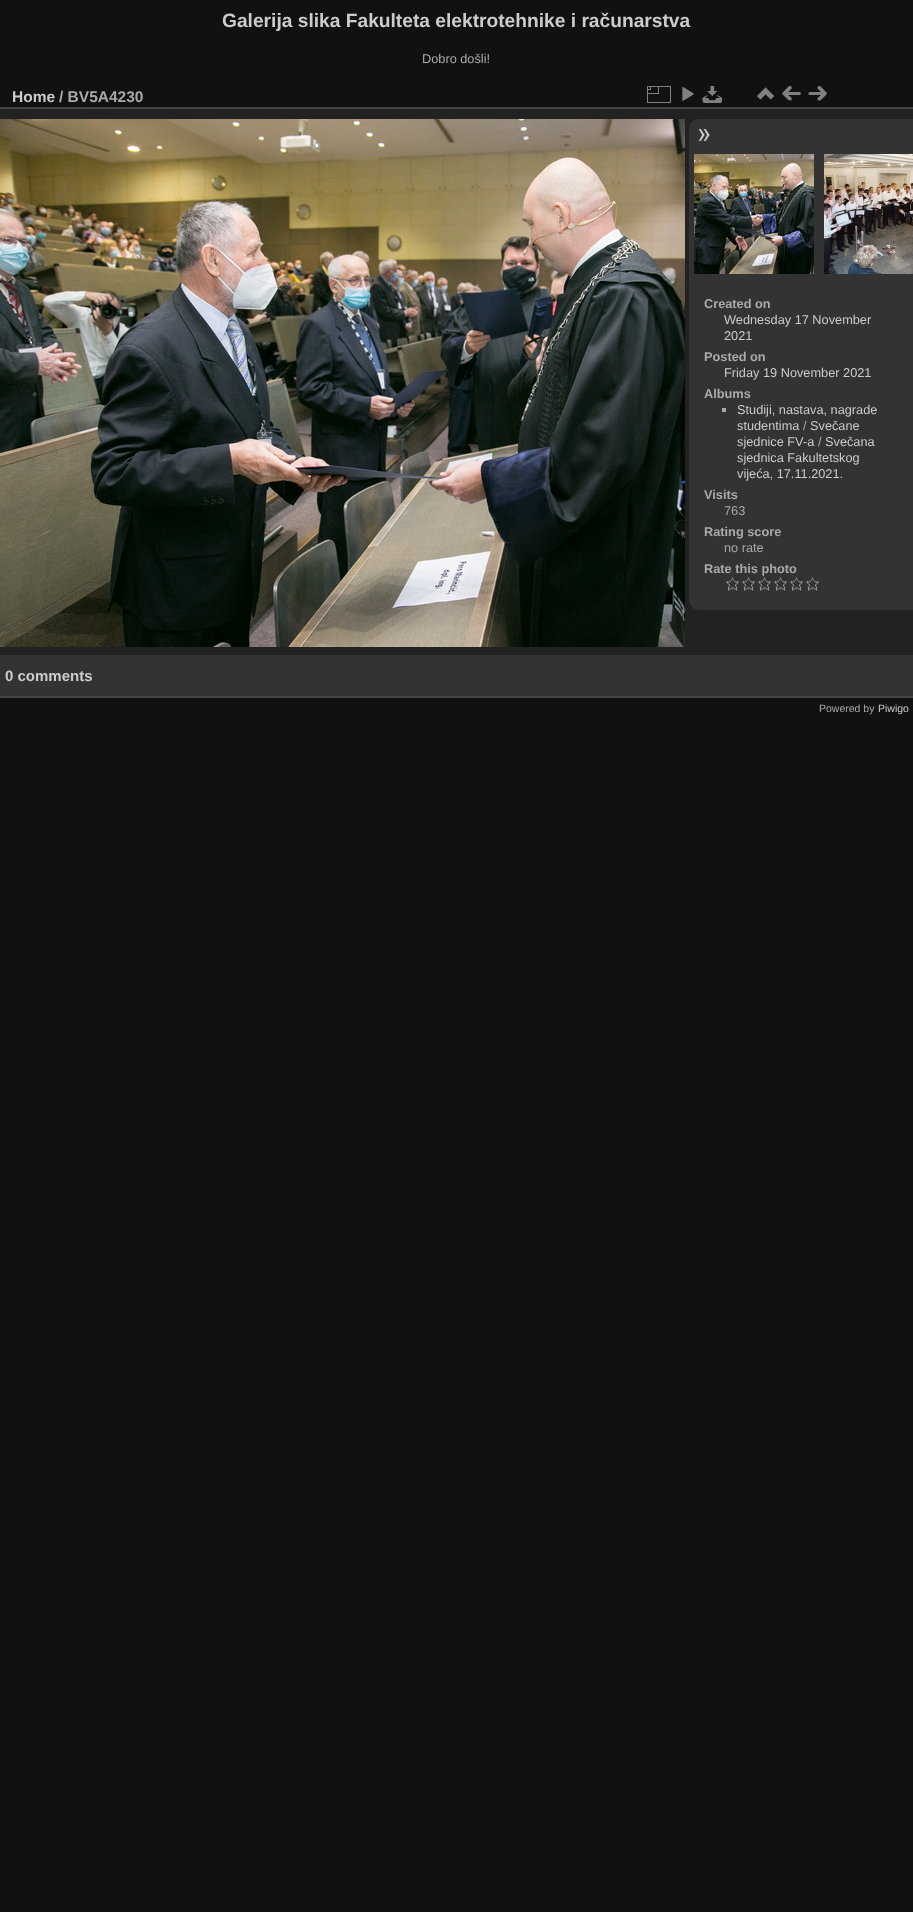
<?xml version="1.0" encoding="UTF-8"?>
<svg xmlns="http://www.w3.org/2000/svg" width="913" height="1912">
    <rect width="100%" height="100%" fill="#111111"/>
    <text x="222" y="27" font-family="Liberation Sans" font-size="19.2" font-weight="700" fill="#CCCCCC">Galerija slika Fakulteta elektrotehnike i računarstva</text>
    <text x="422" y="63" font-family="Liberation Sans" font-size="12.75" fill="#AAAAAA">Dobro došli!</text>
    <rect x="0" y="109" width="913" height="546" fill="#222222"/>
    <rect x="0" y="696" width="913" height="2" fill="#444444"/>
    <rect x="0" y="107" width="913" height="2" fill="#444444"/>
    <text x="12" y="102" font-family="Liberation Sans" font-size="15.5" font-weight="700" fill="#CCCCCC">Home</text>
    <text x="59" y="102" font-family="Liberation Sans" font-size="15.5" font-weight="700" fill="#AAAAAA">/ BV5A4230</text>
    <image x="647" y="86" width="24" height="17" href="img_01.png"/>
    <image x="682" y="87" width="12" height="14" href="img_02.png"/>
    <image x="702" y="86" width="21" height="17" href="img_03.png"/>
    <image x="757" y="87" width="17" height="13" href="img_04.png"/>
    <image x="782" y="86" width="19" height="15" href="img_05.png"/>
    <image x="808" y="86" width="19" height="15" href="img_06.png"/>
    <image x="0" y="119" width="685" height="528" href="img_07.png"/>
    <path d="M 699 119 H 913 V 610 H 699 C 693.5 610 689 605.5 689 600 V 129 C 689 123.5 693.5 119 699 119 Z" fill="#333333"/>
    <image x="698" y="129" width="12" height="12" href="img_08.png"/>
    <image x="694" y="154" width="120" height="120" href="img_09.png"/>
    <image x="824" y="154" width="89" height="120" href="img_10.png"/>
    <text x="704" y="308" font-family="Liberation Sans" font-size="12.75" font-weight="700" fill="#AAAAAA">Created on</text>
    <text font-family="Liberation Sans" font-size="12.75" fill="#CCCCCC">
        <tspan x="724" y="324">Wednesday 17 November</tspan>
        <tspan x="724" y="340">2021</tspan>
    </text>
    <text x="704" y="361" font-family="Liberation Sans" font-size="12.75" font-weight="700" fill="#AAAAAA">Posted on</text>
    <text x="724" y="377" font-family="Liberation Sans" font-size="12.75" fill="#CCCCCC">Friday 19 November 2021</text>
    <text x="704" y="398" font-family="Liberation Sans" font-size="12.75" font-weight="700" fill="#AAAAAA">Albums</text>
    <rect x="722" y="408" width="4" height="4" fill="#AAAAAA"/>
    <text font-family="Liberation Sans" font-size="12.75" fill="#CCCCCC">
        <tspan x="737" y="414">Studiji, nastava, nagrade</tspan>
        <tspan x="737" y="430">studentima</tspan>
    </text>
    <text x="803" y="430" font-family="Liberation Sans" font-size="12.75" fill="#AAAAAA">/</text>
    <text x="810" y="430" font-family="Liberation Sans" font-size="12.75" fill="#CCCCCC">Svečane</text>
    <text x="737" y="446" font-family="Liberation Sans" font-size="12.75" fill="#CCCCCC">sjednice FV-a</text>
    <text x="818" y="446" font-family="Liberation Sans" font-size="12.75" fill="#AAAAAA">/</text>
    <text x="825" y="446" font-family="Liberation Sans" font-size="12.75" fill="#CCCCCC">Svečana</text>
    <text font-family="Liberation Sans" font-size="12.75" fill="#CCCCCC">
        <tspan x="737" y="462">sjednica Fakultetskog</tspan>
        <tspan x="737" y="478">vijeća, 17.11.2021.</tspan>
    </text>
    <text x="704" y="499" font-family="Liberation Sans" font-size="12.75" font-weight="700" fill="#AAAAAA">Visits</text>
    <text x="724" y="515" font-family="Liberation Sans" font-size="12.75" fill="#AAAAAA">763</text>
    <text x="704" y="536" font-family="Liberation Sans" font-size="12.75" font-weight="700" fill="#AAAAAA">Rating score</text>
    <text x="724" y="552" font-family="Liberation Sans" font-size="12.75" fill="#AAAAAA">no rate</text>
    <text x="704" y="573" font-family="Liberation Sans" font-size="12.75" font-weight="700" fill="#AAAAAA">Rate this photo</text>
    <image x="726" y="577" width="13" height="14" href="img_11.png"/>
    <image x="742" y="577" width="13" height="14" href="img_11.png"/>
    <image x="758" y="577" width="13" height="14" href="img_11.png"/>
    <image x="774" y="577" width="13" height="14" href="img_11.png"/>
    <image x="790" y="577" width="13" height="14" href="img_11.png"/>
    <image x="806" y="577" width="13" height="14" href="img_11.png"/>
    <rect x="0" y="655" width="913" height="41" fill="#333333"/>
    <text x="5" y="681" font-family="Liberation Sans" font-size="15" font-weight="700" fill="#CCCCCC">0 comments</text>
    <text x="819" y="712" font-family="Liberation Sans" font-size="10.5" fill="#AAAAAA">Powered by</text>
    <text x="878" y="712" font-family="Liberation Sans" font-size="10.5" fill="#CCCCCC">Piwigo</text>
</svg>
